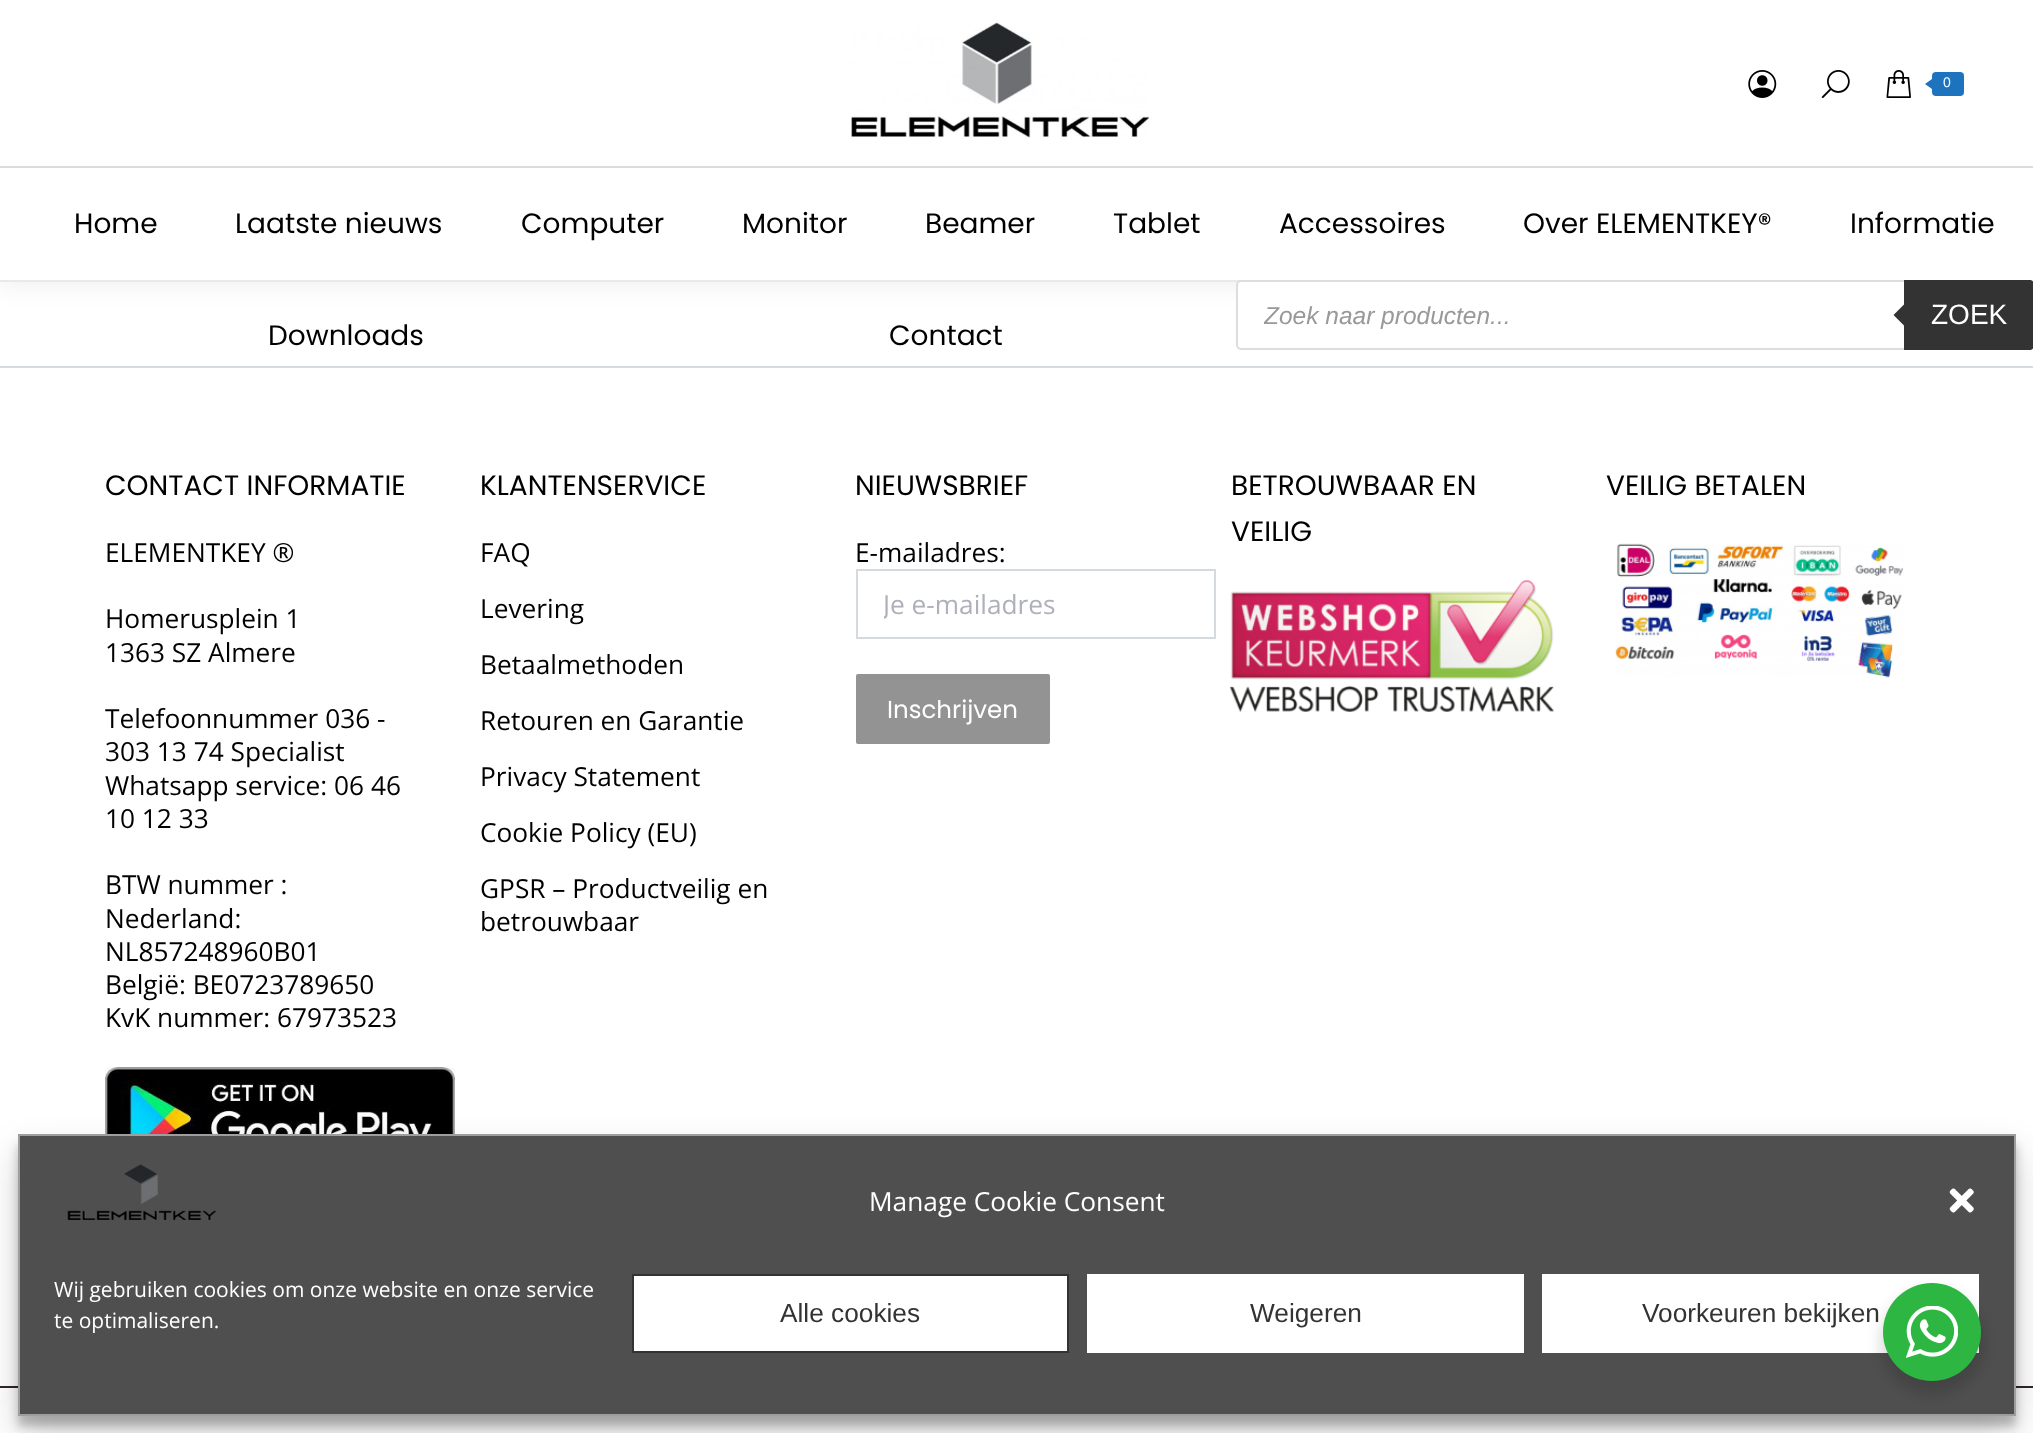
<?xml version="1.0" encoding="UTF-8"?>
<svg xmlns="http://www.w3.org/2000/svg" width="2033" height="1433">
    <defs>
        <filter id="blur1" x="-50%" y="-200%" width="200%" height="500%"><feGaussianBlur stdDeviation="13"/></filter>
        <clipPath id="clip1"><rect x="1264" y="301" width="742" height="28"/></clipPath>
        <clipPath id="clip2"><rect x="884" y="586" width="304" height="35"/></clipPath>
        <filter id="blur2" x="-50%" y="-200%" width="200%" height="500%"><feGaussianBlur stdDeviation="5"/></filter>
        <filter id="blur3" x="-50%" y="-200%" width="200%" height="500%"><feGaussianBlur stdDeviation="17.5"/></filter>
        <filter id="blur4" x="-50%" y="-200%" width="200%" height="500%"><feGaussianBlur stdDeviation="7"/></filter>
    </defs>
    <rect width="100%" height="100%" fill="#FFFFFF"/>
    <rect x="-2" y="-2" width="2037" height="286" fill="#000000" fill-opacity="0.07" filter="url(#blur1)"/>
    <rect x="0" y="0" width="2033" height="280" fill="#FFFFFF"/>
    <rect x="0" y="280" width="2033" height="2" fill="#E9E9E9"/>
    <image x="851" y="22" width="298" height="116" href="img_01.png"/>
    <image x="1748" y="70" width="29" height="28" href="img_02.png"/>
    <image x="1821" y="70" width="29" height="28" href="img_03.png"/>
    <image x="1886" y="70" width="25" height="28" href="img_04.png"/>
    <rect x="1932" y="72" width="32" height="24" rx="4" fill="#1E73BE"/>
    <path d="M 1932 79 V 89 L 1925 84 Z" fill="#1E73BE"/>
    <text x="1943" y="87" font-family="Liberation Sans" font-size="14" fill="#FFFFFF">0</text>
    <rect x="0" y="166" width="2033" height="2" fill="#DBDBDB"/>
    <text x="74" y="233" font-family="Poppins" font-size="28" fill="#000000">Home</text>
    <text x="235" y="233" font-family="Poppins" font-size="28" fill="#000000">Laatste nieuws</text>
    <text x="521" y="233" font-family="Poppins" font-size="28" fill="#000000">Computer</text>
    <text x="742" y="233" font-family="Poppins" font-size="28" fill="#000000">Monitor</text>
    <text x="925" y="233" font-family="Poppins" font-size="28" fill="#000000">Beamer</text>
    <text x="1113" y="233" font-family="Poppins" font-size="28" fill="#000000">Tablet</text>
    <text x="1279" y="233" font-family="Poppins" font-size="28" fill="#000000">Accessoires</text>
    <text x="1523" y="233" font-family="Poppins" font-size="28" fill="#000000">Over ELEMENTKEY®</text>
    <text x="1850" y="233" font-family="Poppins" font-size="28" fill="#000000">Informatie</text>
    <rect x="1237" y="281" width="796" height="68" rx="4" fill="#FFFFFF" stroke="#DDDDDD" stroke-width="2"/>
    <g clip-path="url(#clip1)">
        <text x="1264" y="324" font-family="Liberation Sans" font-size="24.5" font-style="italic" fill="#999999">Zoek naar producten...</text>
    </g>
    <path d="M 1904 280 H 2030 C 2032 280 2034 282 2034 284 V 346 C 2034 348 2032 350 2030 350 H 1904 Z" fill="#333333"/>
    <path d="M 1907.5 301 V 329 L 1893.5 315 Z" fill="#333333"/>
    <text x="1931" y="324" font-family="Liberation Sans" font-size="28" fill="#FFFFFF">ZOEK</text>
    <text x="268" y="345" font-family="Poppins" font-size="28" fill="#000000">Downloads</text>
    <text x="889" y="345" font-family="Poppins" font-size="28" fill="#000000">Contact</text>
    <rect x="0" y="366" width="2033" height="2" fill="#D5DADE"/>
    <text x="105" y="495" font-family="Poppins" font-size="28" fill="#000000">CONTACT INFORMATIE</text>
    <text x="105" y="562" font-family="Open Sans" font-size="26.25" fill="#000000">ELEMENTKEY ®</text>
    <text font-family="Open Sans" font-size="26.25" fill="#000000">
        <tspan x="105" y="628">Homerusplein 1</tspan>
        <tspan x="105" y="662">1363 SZ Almere</tspan>
    </text>
    <text font-family="Open Sans" font-size="26.25" fill="#000000">
        <tspan x="105" y="728">Telefoonnummer 036 -</tspan>
        <tspan x="105" y="761">303 13 74 Specialist</tspan>
        <tspan x="105" y="795">Whatsapp service: 06 46</tspan>
        <tspan x="105" y="828">10 12 33</tspan>
    </text>
    <text font-family="Open Sans" font-size="26.25" fill="#000000">
        <tspan x="105" y="894">BTW nummer :</tspan>
        <tspan x="105" y="928">Nederland:</tspan>
        <tspan x="105" y="961">NL857248960B01</tspan>
        <tspan x="105" y="994">België: BE0723789650</tspan>
        <tspan x="105" y="1027">KvK nummer: 67973523</tspan>
    </text>
    <image x="105" y="1067" width="350" height="67" href="img_05.png"/>
    <text x="480" y="495" font-family="Poppins" font-size="28" fill="#000000">KLANTENSERVICE</text>
    <text x="480" y="562" font-family="Open Sans" font-size="26.25" fill="#000000">FAQ</text>
    <text x="480" y="618" font-family="Open Sans" font-size="26.25" fill="#000000">Levering</text>
    <text x="480" y="674" font-family="Open Sans" font-size="26.25" fill="#000000">Betaalmethoden</text>
    <text x="480" y="730" font-family="Open Sans" font-size="26.25" fill="#000000">Retouren en Garantie</text>
    <text x="480" y="786" font-family="Open Sans" font-size="26.25" fill="#000000">Privacy Statement</text>
    <text x="480" y="842" font-family="Open Sans" font-size="26.25" fill="#000000">Cookie Policy (EU)</text>
    <text font-family="Open Sans" font-size="26.25" fill="#000000">
        <tspan x="480" y="898">GPSR – Productveilig en</tspan>
        <tspan x="480" y="931">betrouwbaar</tspan>
    </text>
    <text x="855" y="495" font-family="Poppins" font-size="28" fill="#000000">NIEUWSBRIEF</text>
    <text x="855" y="562" font-family="Open Sans" font-size="26.25" fill="#000000">E-mailadres:</text>
    <rect x="857" y="570" width="358" height="68" fill="none" stroke="#D5DADE" stroke-width="2"/>
    <g clip-path="url(#clip2)">
        <text x="883" y="614" font-family="Open Sans" font-size="26.25" fill="#AEB0BA">Je e-mailadres</text>
    </g>
    <rect x="856" y="674" width="194" height="70" rx="2" fill="#939393"/>
    <text x="887" y="718" font-family="Poppins" font-size="24.5" fill="#FFFFFF">Inschrijven</text>
    <text font-family="Poppins" font-size="28" fill="#000000">
        <tspan x="1231" y="495">BETROUWBAAR EN</tspan>
        <tspan x="1231" y="541">VEILIG</tspan>
    </text>
    <image x="1230" y="580" width="324" height="132" href="img_06.png"/>
    <text x="1606" y="495" font-family="Poppins" font-size="28" fill="#000000">VEILIG BETALEN</text>
    <image x="1615" y="543" width="289" height="135" href="img_07.png"/>
    <rect x="0" y="1386" width="2033" height="2" fill="#302626"/>
    <rect x="18" y="1145" width="1998" height="281" fill="#000000" fill-opacity="0.23" filter="url(#blur2)"/>
    <rect x="18" y="1152" width="1998" height="281" fill="#000000" fill-opacity="0.19" filter="url(#blur3)"/>
    <rect x="19" y="1135" width="1996" height="280" fill="#4F4F4F" stroke="#9E9E9E" stroke-width="2"/>
    <image x="67" y="1164" width="149" height="56" href="img_08.png"/>
    <text x="869" y="1211" font-family="Open Sans" font-size="26.25" fill="#FFFFFF">Manage Cookie Consent</text>
    <image x="1949" y="1188" width="25" height="25" href="img_09.png"/>
    <text font-family="Open Sans" font-size="21" fill="#FFFFFF">
        <tspan x="54" y="1297">Wij gebruiken cookies om onze website en onze service</tspan>
        <tspan x="54" y="1328">te optimaliseren.</tspan>
    </text>
    <rect x="633" y="1275" width="435" height="77" fill="#FFFFFF" stroke="#333333" stroke-width="2"/>
    <text x="780" y="1322" font-family="Liberation Sans" font-size="26.25" fill="#333333">Alle cookies</text>
    <rect x="1087" y="1274" width="437" height="79" fill="#FFFFFF"/>
    <text x="1250" y="1322" font-family="Liberation Sans" font-size="26.25" fill="#333333">Weigeren</text>
    <rect x="1542" y="1274" width="437" height="79" fill="#FFFFFF"/>
    <text x="1642" y="1322" font-family="Liberation Sans" font-size="26.25" fill="#333333">Voorkeuren bekijken</text>
    <rect x="1880" y="1290" width="105" height="105" rx="52.5" fill="#000000" fill-opacity="0.14" filter="url(#blur4)"/>
    <circle cx="1932" cy="1332" r="49" fill="#2DB742"/>
    <image x="1906" y="1306" width="52" height="52" href="img_10.png"/>
</svg>
